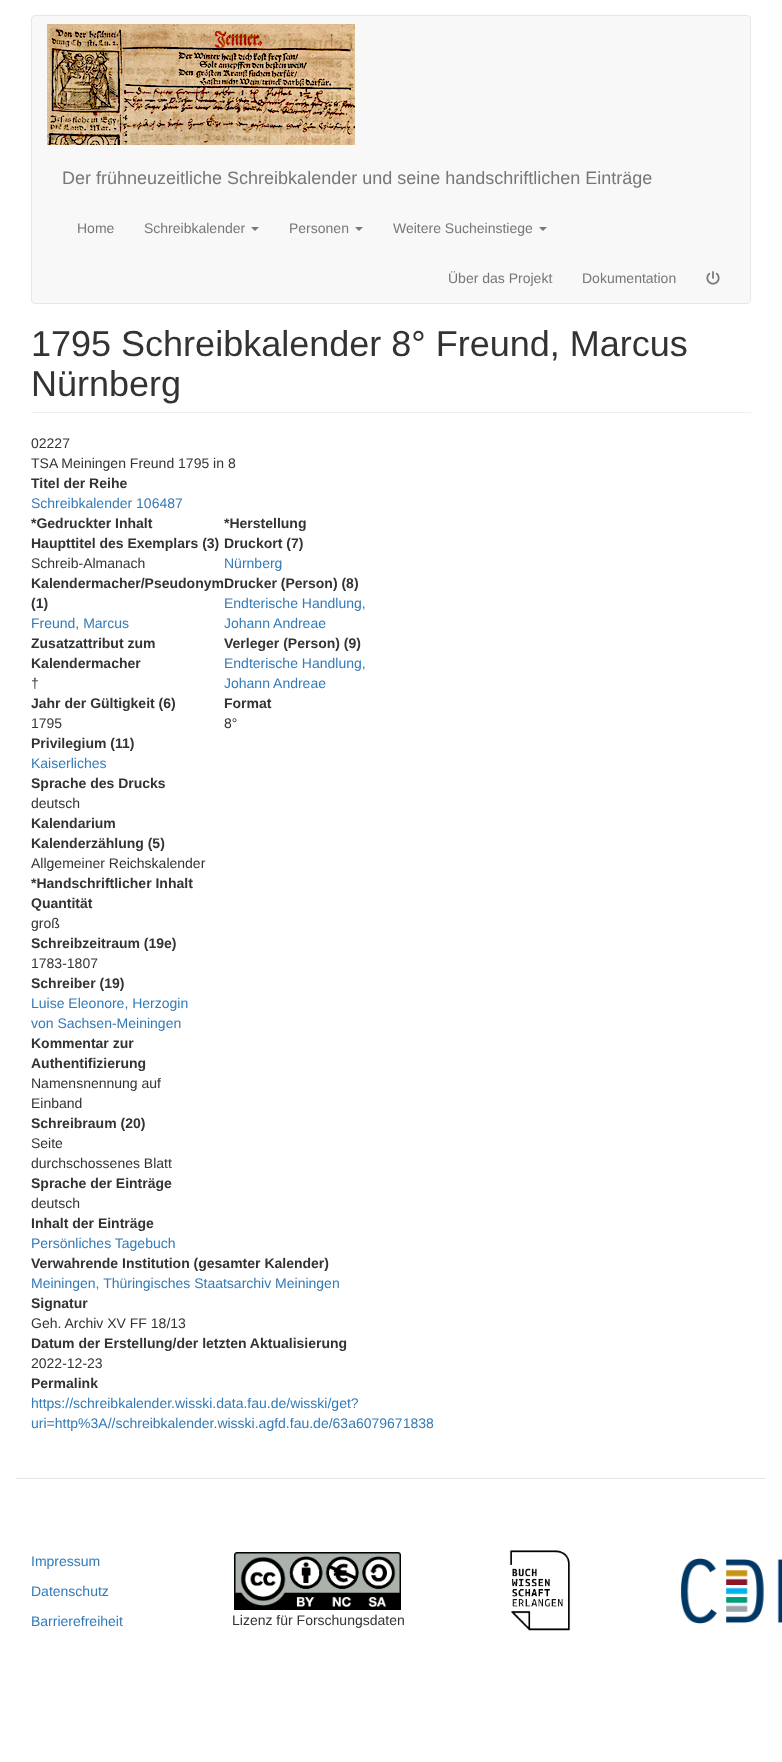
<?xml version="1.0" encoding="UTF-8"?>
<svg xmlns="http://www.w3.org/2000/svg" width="782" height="1762">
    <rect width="100%" height="100%" fill="#FFFFFF"/>
    <rect x="31.5" y="15.5" width="719" height="288" rx="3.5" fill="#F8F8F8" stroke="#E7E7E7"/>
    <image x="47" y="24" width="308" height="121" href="img_01.png"/>
    <text x="62" y="184" font-family="Liberation Sans" font-size="18" fill="#777777">Der frühneuzeitliche Schreibkalender und seine handschriftlichen Einträge</text>
    <text x="77" y="233" font-family="Liberation Sans" font-size="14" fill="#777777">Home</text>
    <text x="144" y="233" font-family="Liberation Sans" font-size="14" fill="#777777">Schreibkalender</text>
    <path d="M 251 227 H 259 L 255 231 Z" fill="#777777"/>
    <text x="289" y="233" font-family="Liberation Sans" font-size="14" fill="#777777">Personen</text>
    <path d="M 355 227 H 363 L 359 231 Z" fill="#777777"/>
    <text x="393" y="233" font-family="Liberation Sans" font-size="14" fill="#777777">Weitere Sucheinstiege</text>
    <path d="M 539 227 H 547 L 543 231 Z" fill="#777777"/>
    <text x="448" y="283" font-family="Liberation Sans" font-size="14" fill="#777777">Über das Projekt</text>
    <text x="582" y="283" font-family="Liberation Sans" font-size="14" fill="#777777">Dokumentation</text>
    <image x="706" y="271" width="14" height="14" href="img_02.png"/>
    <rect x="31" y="412" width="720" height="1" fill="#EEEEEE"/>
    <text font-family="Liberation Sans" font-size="36" fill="#333333">
        <tspan x="31" y="356">1795 Schreibkalender 8° Freund, Marcus</tspan>
        <tspan x="31" y="396">Nürnberg</tspan>
    </text>
    <text font-family="Liberation Sans" font-size="14" fill="#333333">
        <tspan x="31" y="448">02227</tspan>
        <tspan x="31" y="468">TSA Meiningen Freund 1795 in 8</tspan>
    </text>
    <text x="31" y="488" font-family="Liberation Sans" font-size="14" font-weight="700" fill="#333333">Titel der Reihe</text>
    <text x="31" y="508" font-family="Liberation Sans" font-size="14" fill="#337AB7">Schreibkalender 106487</text>
    <text font-family="Liberation Sans" font-size="14" font-weight="700" fill="#333333">
        <tspan x="31" y="528">*Gedruckter Inhalt</tspan>
        <tspan x="31" y="548">Haupttitel des Exemplars (3)</tspan>
    </text>
    <text x="31" y="568" font-family="Liberation Sans" font-size="14" fill="#333333">Schreib-Almanach</text>
    <text font-family="Liberation Sans" font-size="14" font-weight="700" fill="#333333">
        <tspan x="31" y="588">Kalendermacher/PseudonymDrucker (Person) (8)</tspan>
        <tspan x="31" y="608">(1)</tspan>
    </text>
    <text x="31" y="628" font-family="Liberation Sans" font-size="14" fill="#337AB7">Freund, Marcus</text>
    <text font-family="Liberation Sans" font-size="14" font-weight="700" fill="#333333">
        <tspan x="31" y="648">Zusatzattribut zum</tspan>
        <tspan x="31" y="668">Kalendermacher</tspan>
    </text>
    <text x="31" y="688" font-family="Liberation Sans" font-size="14" fill="#333333">†</text>
    <text x="31" y="708" font-family="Liberation Sans" font-size="14" font-weight="700" fill="#333333">Jahr der Gültigkeit (6)</text>
    <text x="31" y="728" font-family="Liberation Sans" font-size="14" fill="#333333">1795</text>
    <text x="31" y="748" font-family="Liberation Sans" font-size="14" font-weight="700" fill="#333333">Privilegium (11)</text>
    <text x="31" y="768" font-family="Liberation Sans" font-size="14" fill="#337AB7">Kaiserliches</text>
    <text x="31" y="788" font-family="Liberation Sans" font-size="14" font-weight="700" fill="#333333">Sprache des Drucks</text>
    <text x="31" y="808" font-family="Liberation Sans" font-size="14" fill="#333333">deutsch</text>
    <text font-family="Liberation Sans" font-size="14" font-weight="700" fill="#333333">
        <tspan x="31" y="828">Kalendarium</tspan>
        <tspan x="31" y="848">Kalenderzählung (5)</tspan>
    </text>
    <text x="31" y="868" font-family="Liberation Sans" font-size="14" fill="#333333">Allgemeiner Reichskalender</text>
    <text font-family="Liberation Sans" font-size="14" font-weight="700" fill="#333333">
        <tspan x="224" y="528">*Herstellung</tspan>
        <tspan x="224" y="548">Druckort (7)</tspan>
    </text>
    <text x="224" y="568" font-family="Liberation Sans" font-size="14" fill="#337AB7">Nürnberg</text>
    <text font-family="Liberation Sans" font-size="14" fill="#337AB7">
        <tspan x="224" y="608">Endterische Handlung,</tspan>
        <tspan x="224" y="628">Johann Andreae</tspan>
    </text>
    <text x="224" y="648" font-family="Liberation Sans" font-size="14" font-weight="700" fill="#333333">Verleger (Person) (9)</text>
    <text font-family="Liberation Sans" font-size="14" fill="#337AB7">
        <tspan x="224" y="668">Endterische Handlung,</tspan>
        <tspan x="224" y="688">Johann Andreae</tspan>
    </text>
    <text x="224" y="708" font-family="Liberation Sans" font-size="14" font-weight="700" fill="#333333">Format</text>
    <text x="224" y="728" font-family="Liberation Sans" font-size="14" fill="#333333">8°</text>
    <text font-family="Liberation Sans" font-size="14" font-weight="700" fill="#333333">
        <tspan x="31" y="888">*Handschriftlicher Inhalt</tspan>
        <tspan x="31" y="908">Quantität</tspan>
    </text>
    <text x="31" y="928" font-family="Liberation Sans" font-size="14" fill="#333333">groß</text>
    <text x="31" y="948" font-family="Liberation Sans" font-size="14" font-weight="700" fill="#333333">Schreibzeitraum (19e)</text>
    <text x="31" y="968" font-family="Liberation Sans" font-size="14" fill="#333333">1783-1807</text>
    <text x="31" y="988" font-family="Liberation Sans" font-size="14" font-weight="700" fill="#333333">Schreiber (19)</text>
    <text font-family="Liberation Sans" font-size="14" fill="#337AB7">
        <tspan x="31" y="1008">Luise Eleonore, Herzogin</tspan>
        <tspan x="31" y="1028">von Sachsen-Meiningen</tspan>
    </text>
    <text font-family="Liberation Sans" font-size="14" font-weight="700" fill="#333333">
        <tspan x="31" y="1048">Kommentar zur</tspan>
        <tspan x="31" y="1068">Authentifizierung</tspan>
    </text>
    <text font-family="Liberation Sans" font-size="14" fill="#333333">
        <tspan x="31" y="1088">Namensnennung auf</tspan>
        <tspan x="31" y="1108">Einband</tspan>
    </text>
    <text x="31" y="1128" font-family="Liberation Sans" font-size="14" font-weight="700" fill="#333333">Schreibraum (20)</text>
    <text font-family="Liberation Sans" font-size="14" fill="#333333">
        <tspan x="31" y="1148">Seite</tspan>
        <tspan x="31" y="1168">durchschossenes Blatt</tspan>
    </text>
    <text x="31" y="1188" font-family="Liberation Sans" font-size="14" font-weight="700" fill="#333333">Sprache der Einträge</text>
    <text x="31" y="1208" font-family="Liberation Sans" font-size="14" fill="#333333">deutsch</text>
    <text x="31" y="1228" font-family="Liberation Sans" font-size="14" font-weight="700" fill="#333333">Inhalt der Einträge</text>
    <text x="31" y="1248" font-family="Liberation Sans" font-size="14" fill="#337AB7">Persönliches Tagebuch</text>
    <text x="31" y="1268" font-family="Liberation Sans" font-size="14" font-weight="700" fill="#333333">Verwahrende Institution (gesamter Kalender)</text>
    <text x="31" y="1288" font-family="Liberation Sans" font-size="14" fill="#337AB7">Meiningen, Thüringisches Staatsarchiv Meiningen</text>
    <text x="31" y="1308" font-family="Liberation Sans" font-size="14" font-weight="700" fill="#333333">Signatur</text>
    <text x="31" y="1328" font-family="Liberation Sans" font-size="14" fill="#333333">Geh. Archiv XV FF 18/13</text>
    <text x="31" y="1348" font-family="Liberation Sans" font-size="14" font-weight="700" fill="#333333">Datum der Erstellung/der letzten Aktualisierung</text>
    <text x="31" y="1368" font-family="Liberation Sans" font-size="14" fill="#333333">2022-12-23</text>
    <text x="31" y="1388" font-family="Liberation Sans" font-size="14" font-weight="700" fill="#333333">Permalink</text>
    <text font-family="Liberation Sans" font-size="14" fill="#337AB7">
        <tspan x="31" y="1408">https://schreibkalender.wisski.data.fau.de/wisski/get?</tspan>
        <tspan x="31" y="1428">uri=http%3A//schreibkalender.wisski.agfd.fau.de/63a6079671838</tspan>
    </text>
    <rect x="16" y="1478" width="750" height="1" fill="#E5E5E5"/>
    <text x="31" y="1566" font-family="Liberation Sans" font-size="14" fill="#337AB7">Impressum</text>
    <text x="31" y="1596" font-family="Liberation Sans" font-size="14" fill="#337AB7">Datenschutz</text>
    <text x="31" y="1626" font-family="Liberation Sans" font-size="14" fill="#337AB7">Barrierefreiheit</text>
    <image x="234" y="1552" width="167" height="58" href="img_03.png"/>
    <text x="232" y="1625" font-family="Liberation Sans" font-size="14" fill="#333333">Lizenz für Forschungsdaten</text>
    <image x="509" y="1550" width="62" height="81" href="img_04.png"/>
    <image x="680" y="1558" width="102" height="66" href="img_05.png"/>
</svg>
